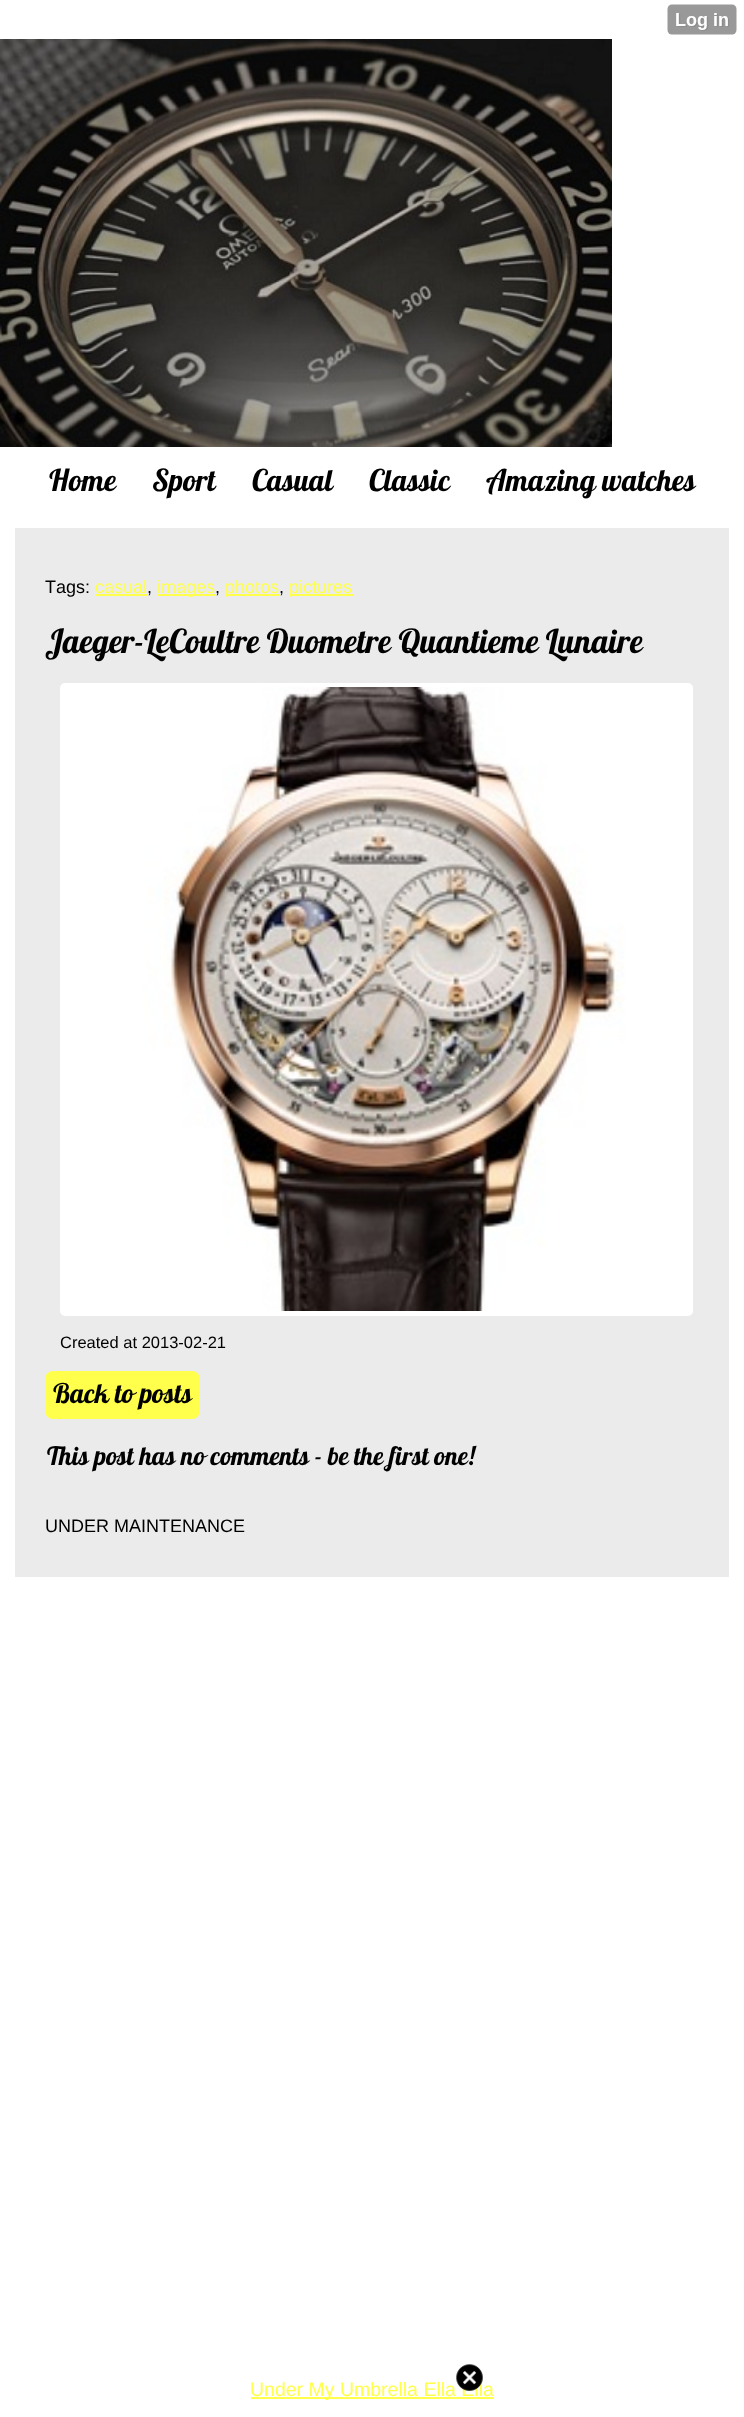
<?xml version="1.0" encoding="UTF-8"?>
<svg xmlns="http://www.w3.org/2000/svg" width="744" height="2417">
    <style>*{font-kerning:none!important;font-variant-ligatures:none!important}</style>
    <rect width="100%" height="100%" fill="#FFFFFF"/>
    <image x="667" y="4" width="70" height="31" href="img_01.png"/>
    <image x="0" y="39" width="612" height="408" href="img_02.png"/>
    <text x="49" y="491" font-family="Lobster" font-size="30" fill="#000000">Home</text>
    <text x="152" y="491" font-family="Lobster" font-size="30" fill="#000000">Sport</text>
    <text x="252" y="491" font-family="Lobster" font-size="30" fill="#000000">Casual</text>
    <text x="369" y="491" font-family="Lobster" font-size="30" fill="#000000">Classic</text>
    <text x="486" y="491" font-family="Lobster" font-size="30" fill="#000000">Amazing watches</text>
    <rect x="15" y="528" width="714" height="1049" fill="#EBEBEB"/>
    <text x="45" y="593" font-family="Liberation Sans" font-size="18" fill="#000000">Tags:</text>
    <text x="95" y="593" font-family="Liberation Sans" font-size="18" fill="#FFFF4C">casual</text>
    <rect x="95" y="594" width="52" height="2" fill="#FFFF4C"/>
    <text x="147" y="593" font-family="Liberation Sans" font-size="18" fill="#000000">,</text>
    <rect x="158" y="594" width="57" height="2" fill="#FFFF4C"/>
    <text x="157" y="593" font-family="Liberation Sans" font-size="18" fill="#FFFF4C">images</text>
    <text x="215" y="593" font-family="Liberation Sans" font-size="18" fill="#000000">,</text>
    <rect x="225" y="594" width="54" height="2" fill="#FFFF4C"/>
    <text x="225" y="593" font-family="Liberation Sans" font-size="18" fill="#FFFF4C">photos</text>
    <text x="279" y="593" font-family="Liberation Sans" font-size="18" fill="#000000">,</text>
    <rect x="290" y="594" width="63" height="2" fill="#FFFF4C"/>
    <text x="289" y="593" font-family="Liberation Sans" font-size="18" fill="#FFFF4C">pictures</text>
    <text x="45" y="653" font-family="Lobster" font-size="33" fill="#000000">Jaeger-LeCoultre Duometre Quantieme Lunaire</text>
    <rect x="62.5" y="685.5" width="628" height="628" rx="2.5" fill="none" stroke="#FFFFFF" stroke-width="5"/>
    <image x="65" y="687" width="623" height="624" href="img_03.png"/>
    <text x="60" y="1348" font-family="Liberation Sans" font-size="16.5" fill="#000000">Created at 2013-02-21</text>
    <rect x="45" y="1371" width="155" height="48" rx="8" fill="#FFFF4C"/>
    <text x="53" y="1403" font-family="Lobster" font-size="27" fill="#000000">Back to posts</text>
    <text x="47" y="1465" font-family="Lobster" font-size="25.5" fill="#000000">This post has no comments - be</text>
    <text x="354" y="1465" font-family="Lobster" font-size="25.5" fill="#000000">the first one!</text>
    <text x="45" y="1532" font-family="Liberation Sans" font-size="18" fill="#000000">UNDER MAINTENANCE</text>
    <rect x="251" y="2397" width="243" height="2" fill="#FFFF4C"/>
    <text x="250" y="2396" font-family="Liberation Sans" font-size="19.5" fill="#FFFF4C">Under My Umbrella Ella Ella</text>
    <image x="456" y="2364" width="27" height="27" href="img_04.png"/>
</svg>
